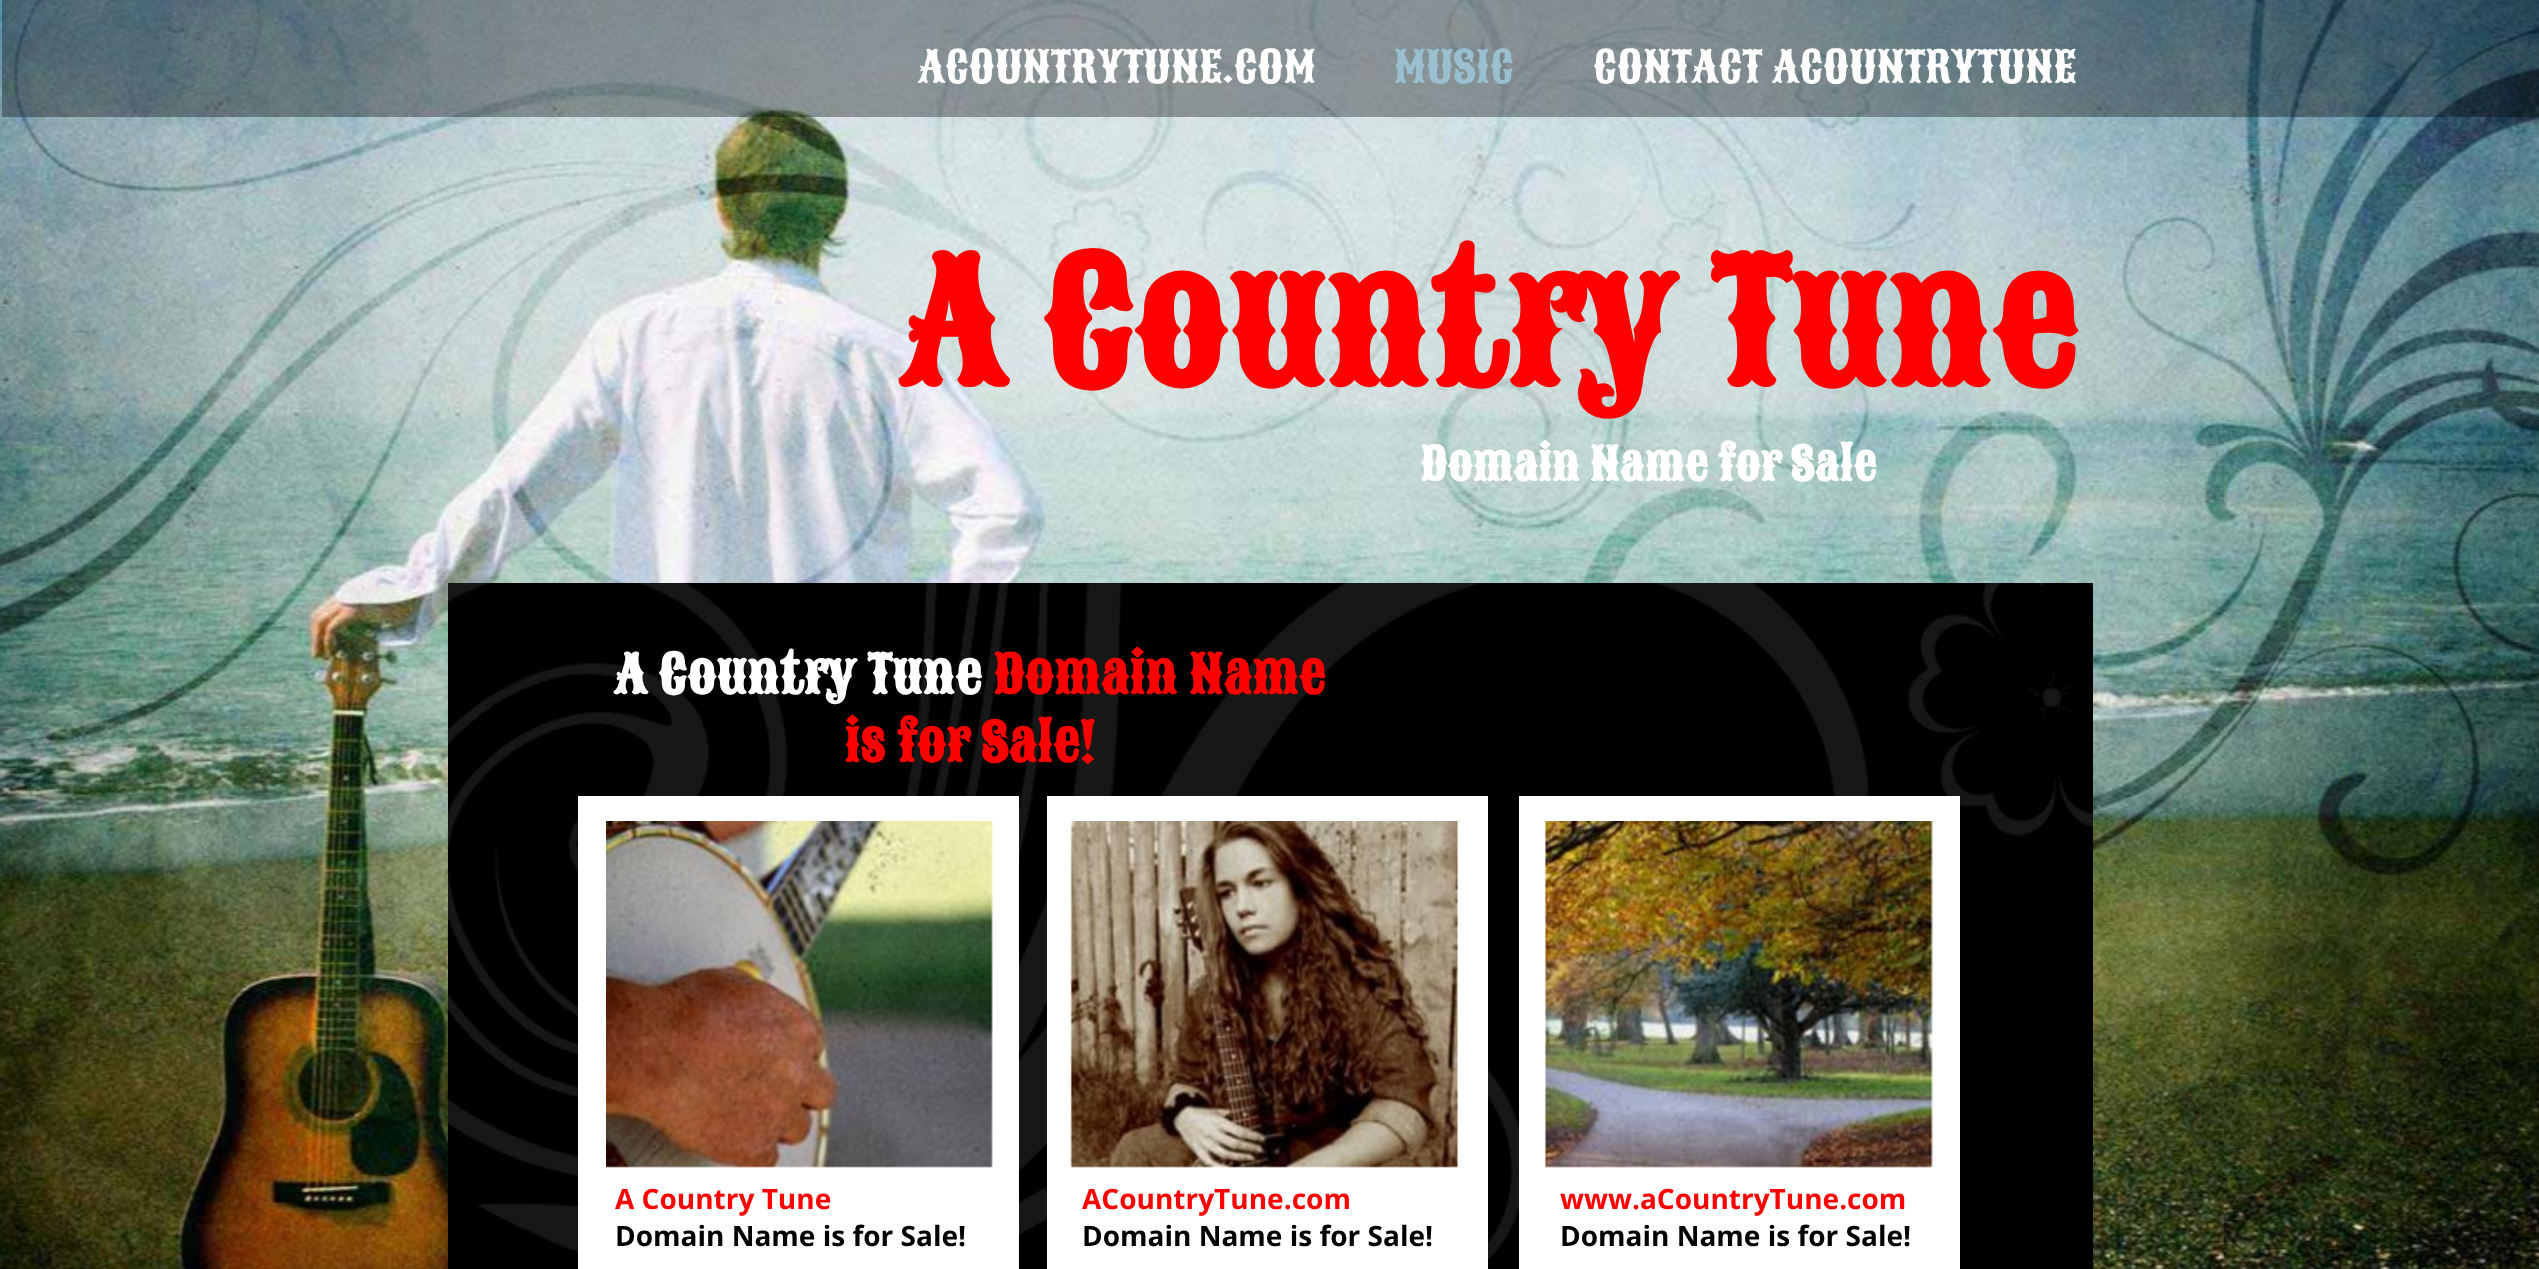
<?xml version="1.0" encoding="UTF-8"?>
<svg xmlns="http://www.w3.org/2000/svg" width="2539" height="1269">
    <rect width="100%" height="100%" fill="#FFFFFF"/>
    <image x="0" y="0" width="2539" height="1269" href="img_01.png"/>
    <rect x="2" y="0" width="2537" height="117" fill="#000000" fill-opacity="0.35"/>
    <text x="918" y="82" font-family="Sancreek" font-size="43.75" fill="#FFFFFF">ACOUNTRYTUNE.COM</text>
    <text x="1394" y="82" font-family="Sancreek" font-size="43.75" fill="#9AC0CF">MUSIC</text>
    <text x="1593" y="82" font-family="Sancreek" font-size="43.75" fill="#FFFFFF">CONTACT ACOUNTRYTUNE</text>
    <text x="900" y="383" font-family="Sancreek" font-size="168" font-weight="700" fill="#FF0000">A Country Tune</text>
    <text x="1420" y="480" font-family="Sancreek" font-size="45.5" font-weight="700" fill="#FFFFFF">Domain Name for Sale</text>
    <image x="448" y="583" width="1645" height="686" href="img_02.png"/>
    <text x="614" y="693" font-family="Sancreek" font-size="52.5" font-weight="700" fill="#FFFFFF">A Country Tune</text>
    <text x="993" y="693" font-family="Sancreek" font-size="52.5" font-weight="700" fill="#FF0000">Domain Name</text>
    <text x="844" y="761" font-family="Sancreek" font-size="52.5" font-weight="700" fill="#FF0000">is for Sale!</text>
    <rect x="578" y="796" width="441" height="473" fill="#FFFFFF"/>
    <rect x="1047" y="796" width="441" height="473" fill="#FFFFFF"/>
    <rect x="1519" y="796" width="441" height="473" fill="#FFFFFF"/>
    <image x="606" y="821" width="387" height="347" href="img_03.png"/>
    <image x="1070" y="821" width="389" height="347" href="img_04.png"/>
    <image x="1544" y="821" width="389" height="347" href="img_05.png"/>
    <text x="615" y="1209" font-family="Open Sans" font-size="28" font-weight="700" fill="#FF0000">A Country Tune</text>
    <text x="615" y="1246" font-family="Open Sans" font-size="28" font-weight="700" fill="#000000">Domain Name is for Sale!</text>
    <text x="1082" y="1209" font-family="Open Sans" font-size="28" font-weight="700" fill="#FF0000">ACountryTune.com</text>
    <text x="1082" y="1246" font-family="Open Sans" font-size="28" font-weight="700" fill="#000000">Domain Name is for Sale!</text>
    <text x="1560" y="1209" font-family="Open Sans" font-size="28" font-weight="700" fill="#FF0000">www.aCountryTune.com</text>
    <text x="1560" y="1246" font-family="Open Sans" font-size="28" font-weight="700" fill="#000000">Domain Name is for Sale!</text>
</svg>
